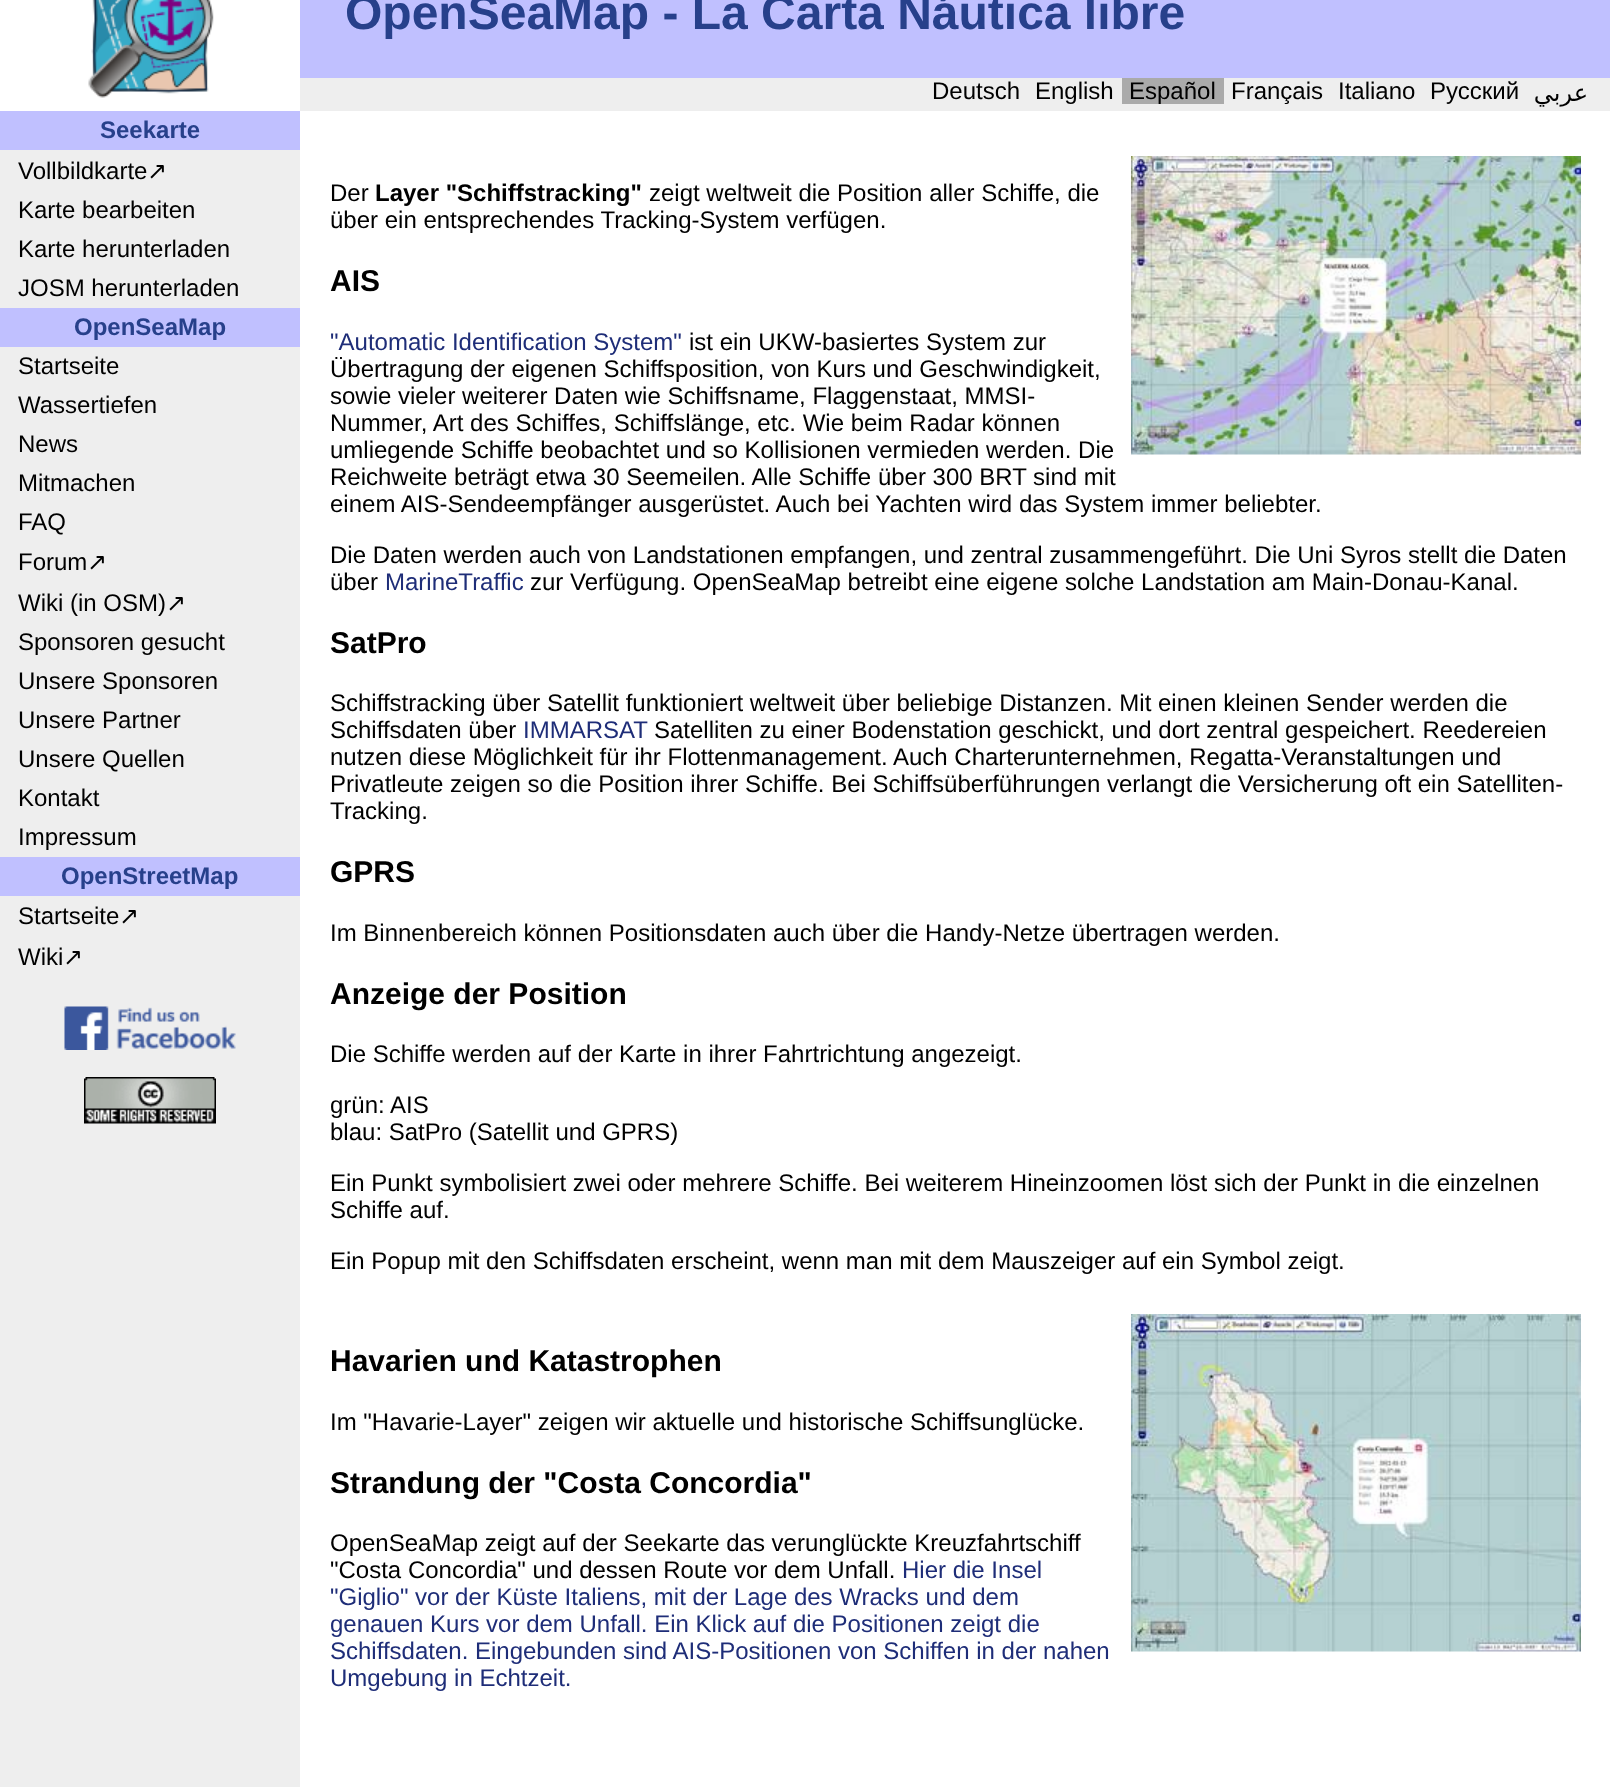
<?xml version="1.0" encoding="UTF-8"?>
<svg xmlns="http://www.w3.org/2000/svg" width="1610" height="1787">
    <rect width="100%" height="100%" fill="#FFFFFF"/>
    <rect x="0" y="150" width="300" height="1637" fill="#EEEEEE"/>
    <image x="0" y="0" width="300" height="111" href="img_01.png"/>
    <rect x="300" y="0" width="1310" height="78" fill="#C0C0FF"/>
    <text x="345" y="29" font-family="Liberation Sans" font-size="48" font-weight="700" fill="#27408B">OpenSeaMap - La Carta Náutica libre</text>
    <rect x="300" y="78" width="1310" height="33" fill="#EEEEEE"/>
    <text x="932" y="99" font-family="Liberation Sans" font-size="24" fill="#000000">Deutsch</text>
    <text x="1035" y="99" font-family="Liberation Sans" font-size="24" fill="#000000">English</text>
    <rect x="1122" y="78" width="102" height="26" fill="#AAAAAA"/>
    <text x="1129" y="99" font-family="Liberation Sans" font-size="24" fill="#000000">Español</text>
    <text x="1231" y="99" font-family="Liberation Sans" font-size="24" fill="#000000">Français</text>
    <text x="1338" y="99" font-family="Liberation Sans" font-size="24" fill="#000000">Italiano</text>
    <text x="1430" y="99" font-family="Liberation Sans" font-size="24" fill="#000000">Русский</text>
    <text x="1588" y="101" font-family="DejaVu Sans" font-size="24" direction="rtl" fill="#000000">عربي</text>
    <rect x="0" y="111" width="300" height="39" fill="#C0C0FF"/>
    <text x="100" y="138" font-family="Liberation Sans" font-size="24" font-weight="700" fill="#27408B">Seekarte</text>
    <text x="18" y="179" font-family="Liberation Sans" font-size="24" fill="#000000">Vollbildkarte</text>
    <text x="147" y="179" font-family="DejaVu Sans" font-size="24" fill="#000000">↗</text>
    <text font-family="Liberation Sans" font-size="24" fill="#000000">
        <tspan x="18" y="218">Karte bearbeiten</tspan>
        <tspan x="18" y="257">Karte herunterladen</tspan>
        <tspan x="18" y="296">JOSM herunterladen</tspan>
    </text>
    <rect x="0" y="308" width="300" height="39" fill="#C0C0FF"/>
    <text x="74" y="335" font-family="Liberation Sans" font-size="24" font-weight="700" fill="#27408B">OpenSeaMap</text>
    <text font-family="Liberation Sans" font-size="24" fill="#000000">
        <tspan x="18" y="374">Startseite</tspan>
        <tspan x="18" y="413">Wassertiefen</tspan>
        <tspan x="18" y="452">News</tspan>
        <tspan x="18" y="491">Mitmachen</tspan>
        <tspan x="18" y="530">FAQ</tspan>
        <tspan x="18" y="570">Forum</tspan>
    </text>
    <text x="87" y="570" font-family="DejaVu Sans" font-size="24" fill="#000000">↗</text>
    <text x="18" y="611" font-family="Liberation Sans" font-size="24" fill="#000000">Wiki (in OSM)</text>
    <text x="166" y="611" font-family="DejaVu Sans" font-size="24" fill="#000000">↗</text>
    <text font-family="Liberation Sans" font-size="24" fill="#000000">
        <tspan x="18" y="650">Sponsoren gesucht</tspan>
        <tspan x="18" y="689">Unsere Sponsoren</tspan>
        <tspan x="18" y="728">Unsere Partner</tspan>
        <tspan x="18" y="767">Unsere Quellen</tspan>
        <tspan x="18" y="806">Kontakt</tspan>
        <tspan x="18" y="845">Impressum</tspan>
    </text>
    <rect x="0" y="857" width="300" height="39" fill="#C0C0FF"/>
    <text x="61" y="884" font-family="Liberation Sans" font-size="24" font-weight="700" fill="#27408B">OpenStreetMap</text>
    <text x="18" y="924" font-family="Liberation Sans" font-size="24" fill="#000000">Startseite</text>
    <text x="119" y="924" font-family="DejaVu Sans" font-size="24" fill="#000000">↗</text>
    <text x="18" y="965" font-family="Liberation Sans" font-size="24" fill="#000000">Wiki</text>
    <text x="63" y="965" font-family="DejaVu Sans" font-size="24" fill="#000000">↗</text>
    <image x="64" y="1006" width="172" height="44" href="img_02.png"/>
    <image x="84" y="1077" width="132" height="47" href="img_03.png"/>
    <image x="1131" y="156" width="450" height="299" href="img_04.png"/>
    <text x="330" y="201" font-family="Liberation Sans" font-size="24" fill="#000000">Der</text>
    <text x="375" y="201" font-family="Liberation Sans" font-size="24" font-weight="700" fill="#000000">Layer "Schiffstracking"</text>
    <text x="649" y="201" font-family="Liberation Sans" font-size="24" fill="#000000">zeigt weltweit die Position aller Schiffe, die</text>
    <text x="330" y="228" font-family="Liberation Sans" font-size="24" fill="#000000">über ein entsprechendes Tracking-System verfügen.</text>
    <text x="330" y="291" font-family="Liberation Sans" font-size="30" font-weight="700" fill="#000000">AIS</text>
    <text x="330" y="350" font-family="Liberation Sans" font-size="24" fill="#1E2D78">"Automatic Identification System"</text>
    <text x="689" y="350" font-family="Liberation Sans" font-size="24" fill="#000000">ist ein UKW-basiertes System zur</text>
    <text font-family="Liberation Sans" font-size="24" fill="#000000">
        <tspan x="330" y="377">Übertragung der eigenen Schiffsposition, von Kurs und Geschwindigkeit,</tspan>
        <tspan x="330" y="404">sowie vieler weiterer Daten wie Schiffsname, Flaggenstaat, MMSI-</tspan>
        <tspan x="330" y="431">Nummer, Art des Schiffes, Schiffslänge, etc. Wie beim Radar können</tspan>
        <tspan x="330" y="458">umliegende Schiffe beobachtet und so Kollisionen vermieden werden. Die</tspan>
        <tspan x="330" y="485">Reichweite beträgt etwa 30 Seemeilen. Alle Schiffe über 300 BRT sind mit</tspan>
        <tspan x="330" y="512">einem AIS-Sendeempfänger ausgerüstet. Auch bei Yachten wird das System immer beliebter.</tspan>
    </text>
    <text font-family="Liberation Sans" font-size="24" fill="#000000">
        <tspan x="330" y="563">Die Daten werden auch von Landstationen empfangen, und zentral zusammengeführt. Die Uni Syros stellt die Daten</tspan>
        <tspan x="330" y="590">über</tspan>
    </text>
    <text x="385" y="590" font-family="Liberation Sans" font-size="24" fill="#1E2D78">MarineTraffic</text>
    <text x="530" y="590" font-family="Liberation Sans" font-size="24" fill="#000000">zur Verfügung. OpenSeaMap betreibt eine eigene solche Landstation am Main-Donau-Kanal.</text>
    <text x="330" y="653" font-family="Liberation Sans" font-size="30" font-weight="700" fill="#000000">SatPro</text>
    <text font-family="Liberation Sans" font-size="24" fill="#000000">
        <tspan x="330" y="711">Schiffstracking über Satellit funktioniert weltweit über beliebige Distanzen. Mit einen kleinen Sender werden die</tspan>
        <tspan x="330" y="738">Schiffsdaten über</tspan>
    </text>
    <text x="523" y="738" font-family="Liberation Sans" font-size="24" fill="#1E2D78">IMMARSAT</text>
    <text x="654" y="738" font-family="Liberation Sans" font-size="24" fill="#000000">Satelliten zu einer Bodenstation geschickt, und dort zentral gespeichert. Reedereien</text>
    <text font-family="Liberation Sans" font-size="24" fill="#000000">
        <tspan x="330" y="765">nutzen diese Möglichkeit für ihr Flottenmanagement. Auch Charterunternehmen, Regatta-Veranstaltungen und</tspan>
        <tspan x="330" y="792">Privatleute zeigen so die Position ihrer Schiffe. Bei Schiffsüberführungen verlangt die Versicherung oft ein Satelliten-</tspan>
        <tspan x="330" y="819">Tracking.</tspan>
    </text>
    <text x="330" y="882" font-family="Liberation Sans" font-size="30" font-weight="700" fill="#000000">GPRS</text>
    <text x="330" y="941" font-family="Liberation Sans" font-size="24" fill="#000000">Im Binnenbereich können Positionsdaten auch über die Handy-Netze übertragen werden.</text>
    <text x="330" y="1004" font-family="Liberation Sans" font-size="30" font-weight="700" fill="#000000">Anzeige der Position</text>
    <text x="330" y="1062" font-family="Liberation Sans" font-size="24" fill="#000000">Die Schiffe werden auf der Karte in ihrer Fahrtrichtung angezeigt.</text>
    <text font-family="Liberation Sans" font-size="24" fill="#000000">
        <tspan x="330" y="1113">grün: AIS</tspan>
        <tspan x="330" y="1140">blau: SatPro (Satellit und GPRS)</tspan>
    </text>
    <text font-family="Liberation Sans" font-size="24" fill="#000000">
        <tspan x="330" y="1191">Ein Punkt symbolisiert zwei oder mehrere Schiffe. Bei weiterem Hineinzoomen löst sich der Punkt in die einzelnen</tspan>
        <tspan x="330" y="1218">Schiffe auf.</tspan>
    </text>
    <text x="330" y="1269" font-family="Liberation Sans" font-size="24" fill="#000000">Ein Popup mit den Schiffsdaten erscheint, wenn man mit dem Mauszeiger auf ein Symbol zeigt.</text>
    <text x="330" y="1371" font-family="Liberation Sans" font-size="30" font-weight="700" fill="#000000">Havarien und Katastrophen</text>
    <text x="330" y="1430" font-family="Liberation Sans" font-size="24" fill="#000000">Im "Havarie-Layer" zeigen wir aktuelle und historische Schiffsunglücke.</text>
    <text x="330" y="1493" font-family="Liberation Sans" font-size="30" font-weight="700" fill="#000000">Strandung der "Costa Concordia"</text>
    <text font-family="Liberation Sans" font-size="24" fill="#000000">
        <tspan x="330" y="1551">OpenSeaMap zeigt auf der Seekarte das verunglückte Kreuzfahrtschiff</tspan>
        <tspan x="330" y="1578">"Costa Concordia" und dessen Route vor dem Unfall.</tspan>
    </text>
    <text x="902" y="1578" font-family="Liberation Sans" font-size="24" fill="#1E2D78">Hier die Insel</text>
    <text font-family="Liberation Sans" font-size="24" fill="#1E2D78">
        <tspan x="330" y="1605">"Giglio" vor der Küste Italiens, mit der Lage des Wracks und dem</tspan>
        <tspan x="330" y="1632">genauen Kurs vor dem Unfall. Ein Klick auf die Positionen zeigt die</tspan>
        <tspan x="330" y="1659">Schiffsdaten. Eingebunden sind AIS-Positionen von Schiffen in der nahen</tspan>
        <tspan x="330" y="1686">Umgebung in Echtzeit.</tspan>
    </text>
    <image x="1131" y="1314" width="450" height="338" href="img_05.png"/>
</svg>
